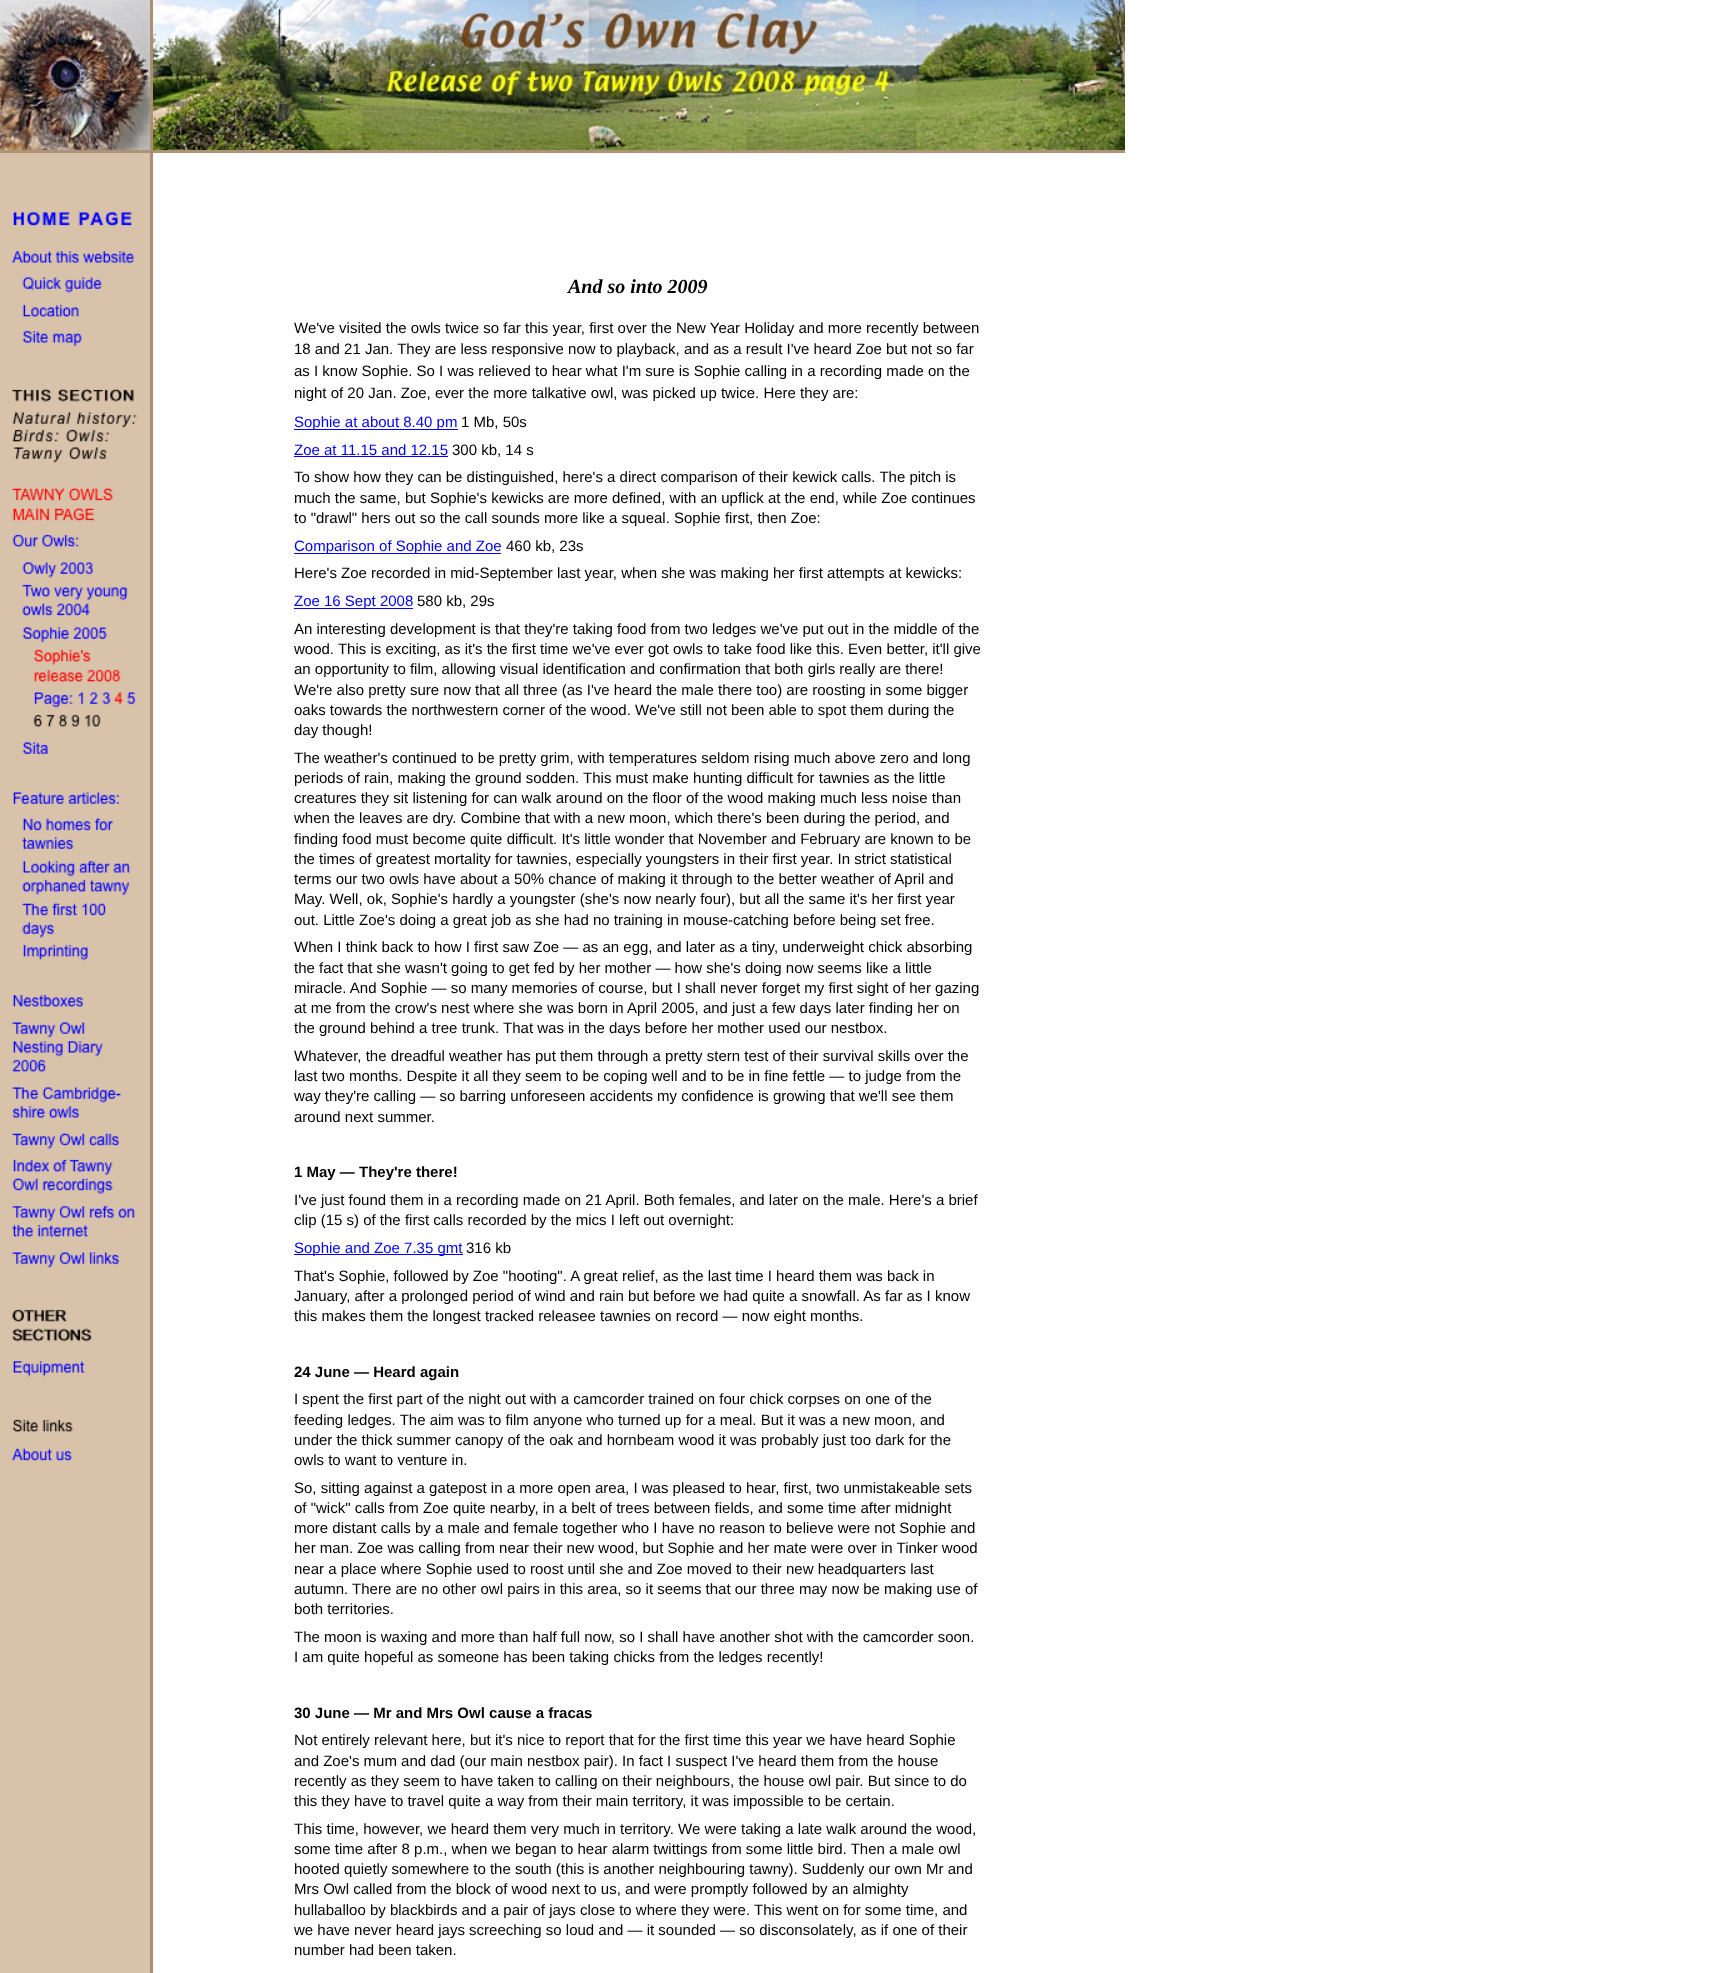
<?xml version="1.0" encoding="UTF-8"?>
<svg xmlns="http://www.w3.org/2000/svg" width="1728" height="1973">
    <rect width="100%" height="100%" fill="#FFFFFF"/>
    <rect x="0" y="150" width="1125" height="3" fill="#AE9377"/>
    <rect x="150" y="0" width="3" height="1973" fill="#AB8F72"/>
    <image x="0" y="0" width="150" height="150" href="img_01.png"/>
    <image x="153" y="0" width="972" height="150" href="img_02.png"/>
    <image x="0" y="153" width="150" height="1820" href="img_03.png"/>
    <text x="568" y="293" font-family="Liberation Serif" font-size="20" font-weight="700" font-style="italic" fill="#000000">And so into 2009</text>
    <text font-family="Liberation Sans" font-size="15" fill="#000000">
        <tspan x="294" y="333">We've visited the owls twice so far this year, first over the New Year Holiday and more recently between</tspan>
        <tspan x="294" y="354">18 and 21 Jan. They are less responsive now to playback, and as a result I've heard Zoe but not so far</tspan>
        <tspan x="294" y="376">as I know Sophie. So I was relieved to hear what I'm sure is Sophie calling in a recording made on the</tspan>
        <tspan x="294" y="398">night of 20 Jan. Zoe, ever the more talkative owl, was picked up twice. Here they are:</tspan>
    </text>
    <rect x="294" y="429" width="164" height="1" fill="#0000EE"/>
    <text x="294" y="427" font-family="Liberation Sans" font-size="15" fill="#0000EE">Sophie at about 8.40 pm</text>
    <text x="461" y="427" font-family="Liberation Sans" font-size="15" fill="#000000">1 Mb, 50s</text>
    <text x="294" y="455" font-family="Liberation Sans" font-size="15" fill="#0000EE">Zoe at 11.15 and 12.15</text>
    <rect x="294" y="456" width="154" height="1" fill="#0000EE"/>
    <text x="452" y="455" font-family="Liberation Sans" font-size="15" fill="#000000">300 kb, 14 s</text>
    <text font-family="Liberation Sans" font-size="15" fill="#000000">
        <tspan x="294" y="482">To show how they can be distinguished, here's a direct comparison of their kewick calls. The pitch is</tspan>
        <tspan x="294" y="503">much the same, but Sophie's kewicks are more defined, with an upflick at the end, while Zoe continues</tspan>
        <tspan x="294" y="523">to "drawl" hers out so the call sounds more like a squeal. Sophie first, then Zoe:</tspan>
    </text>
    <rect x="294" y="553" width="207" height="1" fill="#0000EE"/>
    <text x="294" y="551" font-family="Liberation Sans" font-size="15" fill="#0000EE">Comparison of Sophie and Zoe</text>
    <text x="506" y="551" font-family="Liberation Sans" font-size="15" fill="#000000">460 kb, 23s</text>
    <text x="294" y="578" font-family="Liberation Sans" font-size="15" fill="#000000">Here's Zoe recorded in mid-September last year, when she was making her first attempts at kewicks:</text>
    <rect x="294" y="608" width="119" height="1" fill="#0000EE"/>
    <text x="294" y="606" font-family="Liberation Sans" font-size="15" fill="#0000EE">Zoe 16 Sept 2008</text>
    <text x="417" y="606" font-family="Liberation Sans" font-size="15" fill="#000000">580 kb, 29s</text>
    <text font-family="Liberation Sans" font-size="15" fill="#000000">
        <tspan x="294" y="634">An interesting development is that they're taking food from two ledges we've put out in the middle of the</tspan>
        <tspan x="294" y="654">wood. This is exciting, as it's the first time we've ever got owls to take food like this. Even better, it'll give</tspan>
        <tspan x="294" y="674">an opportunity to film, allowing visual identification and confirmation that both girls really are there!</tspan>
        <tspan x="294" y="695">We're also pretty sure now that all three (as I've heard the male there too) are roosting in some bigger</tspan>
        <tspan x="294" y="715">oaks towards the northwestern corner of the wood. We've still not been able to spot them during the</tspan>
        <tspan x="294" y="735">day though!</tspan>
        <tspan x="294" y="763">The weather's continued to be pretty grim, with temperatures seldom rising much above zero and long</tspan>
        <tspan x="294" y="783">periods of rain, making the ground sodden. This must make hunting difficult for tawnies as the little</tspan>
        <tspan x="294" y="803">creatures they sit listening for can walk around on the floor of the wood making much less noise than</tspan>
        <tspan x="294" y="823">when the leaves are dry. Combine that with a new moon, which there's been during the period, and</tspan>
        <tspan x="294" y="844">finding food must become quite difficult. It's little wonder that November and February are known to be</tspan>
        <tspan x="294" y="864">the times of greatest mortality for tawnies, especially youngsters in their first year. In strict statistical</tspan>
        <tspan x="294" y="884">terms our two owls have about a 50% chance of making it through to the better weather of April and</tspan>
        <tspan x="294" y="904">May. Well, ok, Sophie's hardly a youngster (she's now nearly four), but all the same it's her first year</tspan>
        <tspan x="294" y="925">out. Little Zoe's doing a great job as she had no training in mouse-catching before being set free.</tspan>
        <tspan x="294" y="952">When I think back to how I first saw Zoe — as an egg, and later as a tiny, underweight chick absorbing</tspan>
        <tspan x="294" y="973">the fact that she wasn't going to get fed by her mother — how she's doing now seems like a little</tspan>
        <tspan x="294" y="993">miracle. And Sophie — so many memories of course, but I shall never forget my first sight of her gazing</tspan>
        <tspan x="294" y="1013">at me from the crow's nest where she was born in April 2005, and just a few days later finding her on</tspan>
        <tspan x="294" y="1033">the ground behind a tree trunk. That was in the days before her mother used our nestbox.</tspan>
        <tspan x="294" y="1061">Whatever, the dreadful weather has put them through a pretty stern test of their survival skills over the</tspan>
        <tspan x="294" y="1081">last two months. Despite it all they seem to be coping well and to be in fine fettle — to judge from the</tspan>
        <tspan x="294" y="1101">way they're calling — so barring unforeseen accidents my confidence is growing that we'll see them</tspan>
        <tspan x="294" y="1122">around next summer.</tspan>
    </text>
    <text x="294" y="1177" font-family="Liberation Sans" font-size="15" font-weight="700" fill="#000000">1 May — They're there!</text>
    <text font-family="Liberation Sans" font-size="15" fill="#000000">
        <tspan x="294" y="1205">I've just found them in a recording made on 21 April. Both females, and later on the male. Here's a brief</tspan>
        <tspan x="294" y="1225">clip (15 s) of the first calls recorded by the mics I left out overnight:</tspan>
    </text>
    <rect x="294" y="1254" width="169" height="1" fill="#0000EE"/>
    <text x="294" y="1253" font-family="Liberation Sans" font-size="15" fill="#0000EE">Sophie and Zoe 7.35 gmt</text>
    <text x="466" y="1253" font-family="Liberation Sans" font-size="15" fill="#000000">316 kb</text>
    <text font-family="Liberation Sans" font-size="15" fill="#000000">
        <tspan x="294" y="1281">That's Sophie, followed by Zoe "hooting". A great relief, as the last time I heard them was back in</tspan>
        <tspan x="294" y="1301">January, after a prolonged period of wind and rain but before we had quite a snowfall. As far as I know</tspan>
        <tspan x="294" y="1321">this makes them the longest tracked releasee tawnies on record — now eight months.</tspan>
    </text>
    <text x="294" y="1377" font-family="Liberation Sans" font-size="15" font-weight="700" fill="#000000">24 June — Heard again</text>
    <text font-family="Liberation Sans" font-size="15" fill="#000000">
        <tspan x="294" y="1404">I spent the first part of the night out with a camcorder trained on four chick corpses on one of the</tspan>
        <tspan x="294" y="1425">feeding ledges. The aim was to film anyone who turned up for a meal. But it was a new moon, and</tspan>
        <tspan x="294" y="1445">under the thick summer canopy of the oak and hornbeam wood it was probably just too dark for the</tspan>
        <tspan x="294" y="1465">owls to want to venture in.</tspan>
        <tspan x="294" y="1493">So, sitting against a gatepost in a more open area, I was pleased to hear, first, two unmistakeable sets</tspan>
        <tspan x="294" y="1513">of "wick" calls from Zoe quite nearby, in a belt of trees between fields, and some time after midnight</tspan>
        <tspan x="294" y="1533">more distant calls by a male and female together who I have no reason to believe were not Sophie and</tspan>
        <tspan x="294" y="1553">her man. Zoe was calling from near their new wood, but Sophie and her mate were over in Tinker wood</tspan>
        <tspan x="294" y="1574">near a place where Sophie used to roost until she and Zoe moved to their new headquarters last</tspan>
        <tspan x="294" y="1594">autumn. There are no other owl pairs in this area, so it seems that our three may now be making use of</tspan>
        <tspan x="294" y="1614">both territories.</tspan>
        <tspan x="294" y="1642">The moon is waxing and more than half full now, so I shall have another shot with the camcorder soon.</tspan>
        <tspan x="294" y="1662">I am quite hopeful as someone has been taking chicks from the ledges recently!</tspan>
    </text>
    <text x="294" y="1718" font-family="Liberation Sans" font-size="15" font-weight="700" fill="#000000">30 June — Mr and Mrs Owl cause a fracas</text>
    <text font-family="Liberation Sans" font-size="15" fill="#000000">
        <tspan x="294" y="1745">Not entirely relevant here, but it's nice to report that for the first time this year we have heard Sophie</tspan>
        <tspan x="294" y="1766">and Zoe's mum and dad (our main nestbox pair). In fact I suspect I've heard them from the house</tspan>
        <tspan x="294" y="1786">recently as they seem to have taken to calling on their neighbours, the house owl pair. But since to do</tspan>
        <tspan x="294" y="1806">this they have to travel quite a way from their main territory, it was impossible to be certain.</tspan>
        <tspan x="294" y="1834">This time, however, we heard them very much in territory. We were taking a late walk around the wood,</tspan>
        <tspan x="294" y="1854">some time after 8 p.m., when we began to hear alarm twittings from some little bird. Then a male owl</tspan>
        <tspan x="294" y="1874">hooted quietly somewhere to the south (this is another neighbouring tawny). Suddenly our own Mr and</tspan>
        <tspan x="294" y="1894">Mrs Owl called from the block of wood next to us, and were promptly followed by an almighty</tspan>
        <tspan x="294" y="1915">hullaballoo by blackbirds and a pair of jays close to where they were. This went on for some time, and</tspan>
        <tspan x="294" y="1935">we have never heard jays screeching so loud and — it sounded — so disconsolately, as if one of their</tspan>
        <tspan x="294" y="1955">number had been taken.</tspan>
    </text>
</svg>
